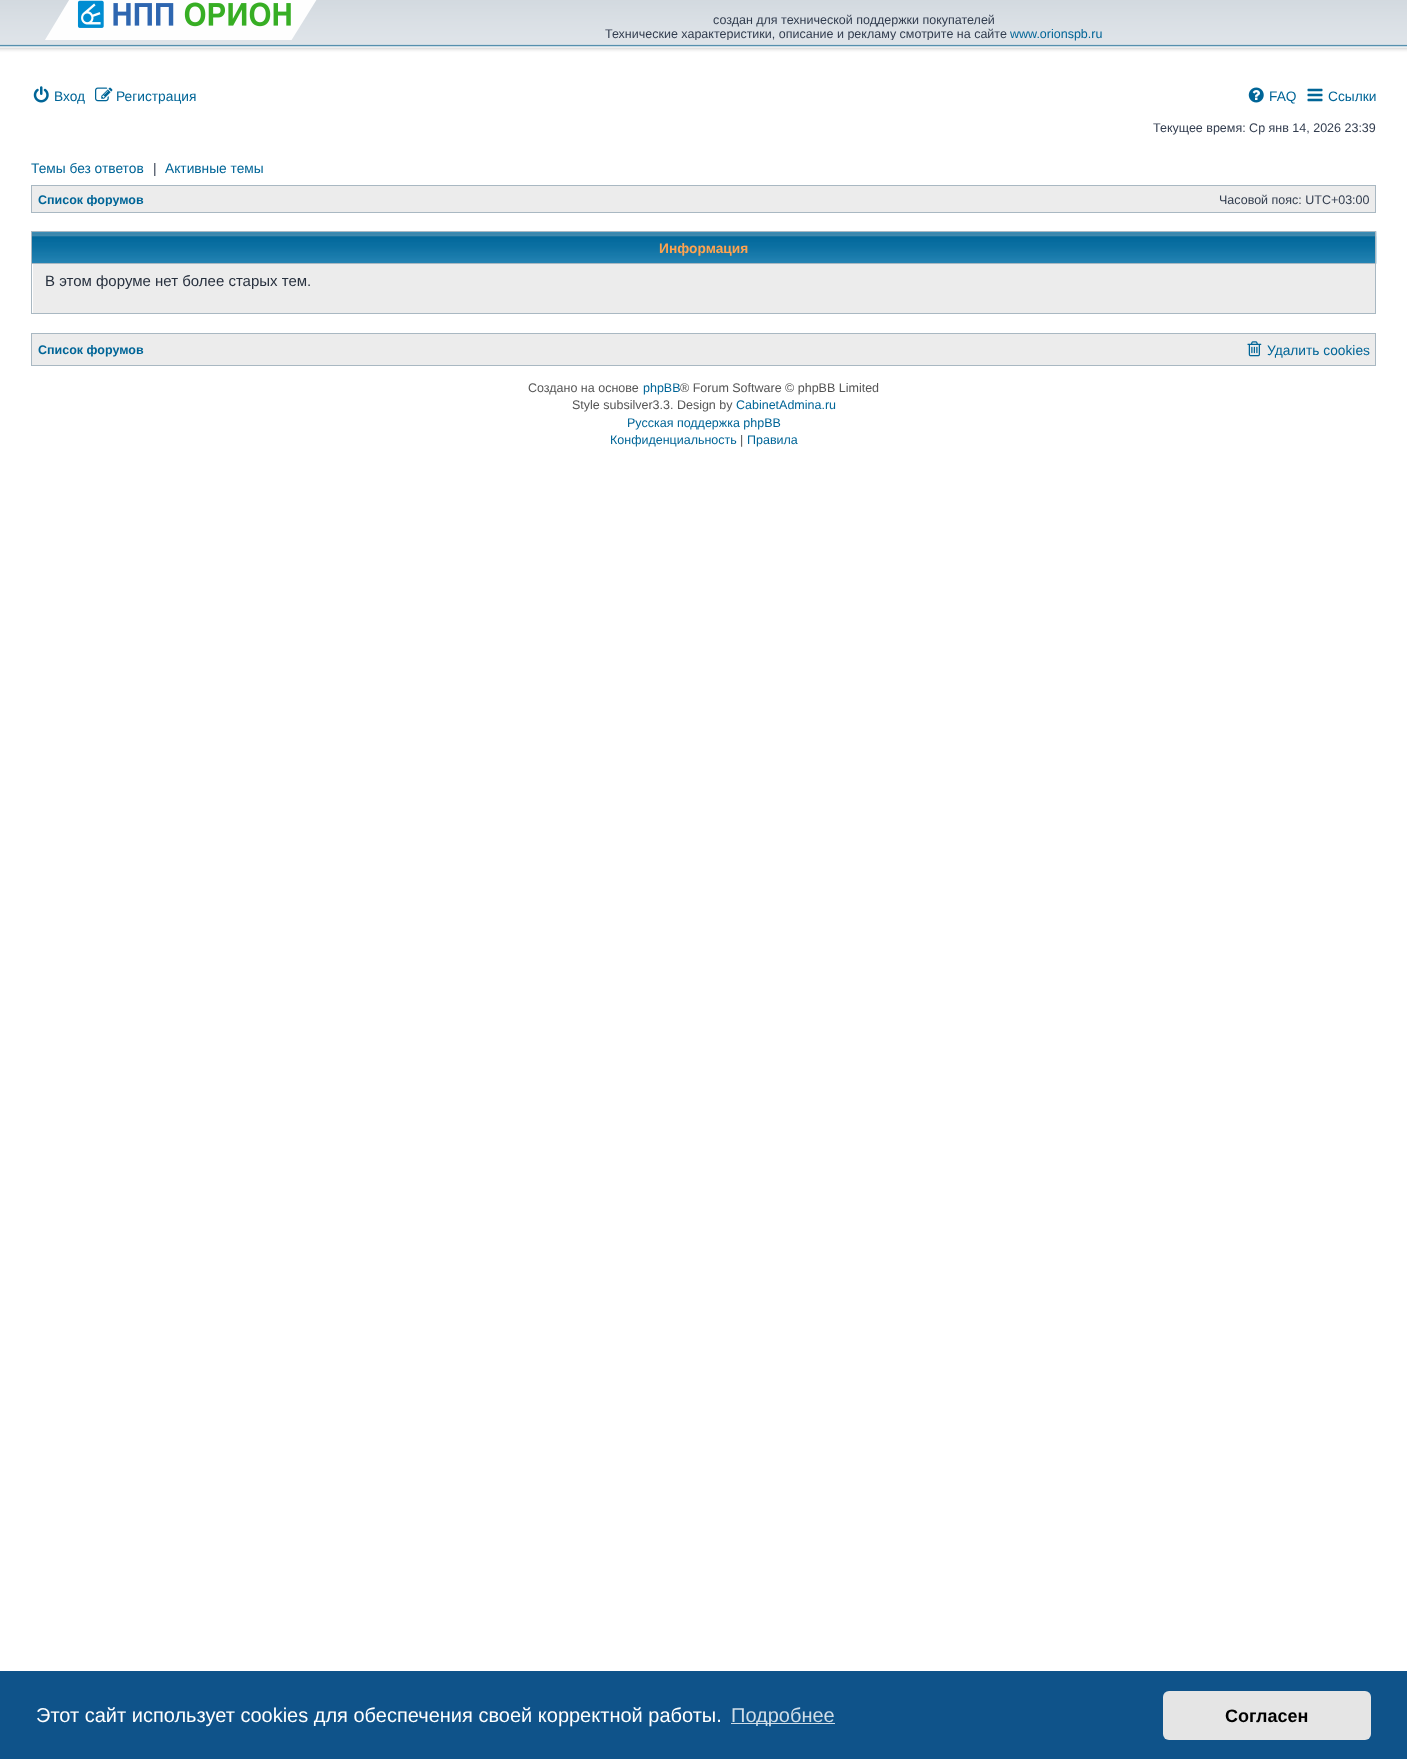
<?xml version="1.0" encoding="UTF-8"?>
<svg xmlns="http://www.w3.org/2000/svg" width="1407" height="1759">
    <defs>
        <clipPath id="clip1"><rect x="31" y="0" width="1345" height="40"/></clipPath>
        <clipPath id="clip2"><rect x="38" y="193" width="106" height="13"/></clipPath>
    </defs>
    <rect width="100%" height="100%" fill="#FFFFFF"/>
    <image x="0" y="0" width="1407" height="59" href="img_01.png"/>
    <image x="45" y="0" width="272" height="40" href="img_02.png"/>
    <text x="713" y="24" font-family="Liberation Sans" font-size="12.5" fill="#323D4F">создан для технической поддержки покупателей</text>
    <g clip-path="url(#clip1)">
        <text x="605" y="38" font-family="Liberation Sans" font-size="12.5" fill="#323D4F">Технические характеристики, описание и рекламу смотрите на сайте</text>
    </g>
    <text x="1010" y="38" font-family="Liberation Sans" font-size="12.5" fill="#006597">www.orionspb.ru</text>
    <image x="33" y="86" width="16" height="17" href="img_03.png"/>
    <text x="54" y="101" font-family="Liberation Sans" font-size="13.75" fill="#006597">Вход</text>
    <image x="95" y="87" width="18" height="15" href="img_04.png"/>
    <text x="116" y="101" font-family="Liberation Sans" font-size="13.75" fill="#006597">Регистрация</text>
    <image x="1248" y="87" width="16" height="16" href="img_05.png"/>
    <text x="1269" y="101" font-family="Liberation Sans" font-size="13.75" fill="#006597">FAQ</text>
    <image x="1307" y="88" width="16" height="14" href="img_06.png"/>
    <text x="1328" y="101" font-family="Liberation Sans" font-size="13.75" fill="#006597">Ссылки</text>
    <text x="1153" y="132" font-family="Liberation Sans" font-size="12.5" fill="#323D4F">Текущее время: Ср янв 14, 2026 23:39</text>
    <text x="31" y="173" font-family="Liberation Sans" font-size="13.75" fill="#006597">Темы без ответов</text>
    <text x="153" y="173" font-family="Liberation Sans" font-size="13.75" fill="#323D4F">|</text>
    <text x="165" y="173" font-family="Liberation Sans" font-size="13.75" fill="#006597">Активные темы</text>
    <rect x="31.5" y="185.5" width="1344" height="27" fill="#ECECEC" stroke="#A9B8C2"/>
    <g clip-path="url(#clip2)">
        <text x="38" y="204" font-family="Liberation Sans" font-size="12.5" font-weight="700" fill="#006597">Список форумов</text>
    </g>
    <text x="1219" y="204" font-family="Liberation Sans" font-size="12.5" fill="#323D4F">Часовой пояс: UTC+03:00</text>
    <image x="32" y="231" width="1345" height="33" href="img_07.png"/>
    <rect x="31.5" y="231.5" width="1344" height="32" fill="none" stroke="#A9B8C2"/>
    <text x="659" y="253" font-family="Liberation Sans" font-size="13.75" font-weight="700" fill="#FFA34F">Информация</text>
    <rect x="33" y="264" width="1342" height="49" fill="#ECECEC"/>
    <rect x="1375" y="264" width="1" height="50" fill="#A9B8C2"/>
    <rect x="31" y="313" width="1345" height="1" fill="#A9B8C2"/>
    <rect x="31" y="264" width="1" height="50" fill="#A9B8C2"/>
    <text x="45" y="286" font-family="Liberation Sans" font-size="15" fill="#28313F">В этом форуме нет более старых тем.</text>
    <rect x="31.5" y="333.5" width="1344" height="32" fill="#ECECEC" stroke="#A9B8C2"/>
    <text x="38" y="354" font-family="Liberation Sans" font-size="12.5" font-weight="700" fill="#006597">Список форумов</text>
    <image x="1247" y="341" width="15" height="16" href="img_08.png"/>
    <text x="1267" y="355" font-family="Liberation Sans" font-size="13.75" fill="#006597">Удалить cookies</text>
    <text x="528" y="392" font-family="Liberation Sans" font-size="12.5" fill="#555555">Создано на основе</text>
    <text x="643" y="392" font-family="Liberation Sans" font-size="12.5" fill="#006597">phpBB</text>
    <text x="680" y="392" font-family="Liberation Sans" font-size="12.5" fill="#555555">® Forum Software © phpBB Limited</text>
    <text x="572" y="409" font-family="Liberation Sans" font-size="12.5" fill="#555555">Style subsilver3.3. Design by</text>
    <text x="736" y="409" font-family="Liberation Sans" font-size="12.5" fill="#006597">CabinetAdmina.ru</text>
    <text x="627" y="427" font-family="Liberation Sans" font-size="12.5" fill="#006597">Русская поддержка phpBB</text>
    <text x="610" y="444" font-family="Liberation Sans" font-size="12.5" fill="#006597">Конфиденциальность</text>
    <text x="740" y="444" font-family="Liberation Sans" font-size="12.5" fill="#555555">|</text>
    <text x="747" y="444" font-family="Liberation Sans" font-size="12.5" fill="#006597">Правила</text>
    <rect x="0" y="1671" width="1407" height="88" fill="#0F538A"/>
    <text x="36" y="1722" font-family="Liberation Sans" font-size="20" fill="#FFFFFF">Этот сайт использует cookies для обеспечения своей корректной работы.</text>
    <rect x="731" y="1723" width="104" height="1" fill="#CFDDE8"/>
    <text x="731" y="1722" font-family="Liberation Sans" font-size="20" fill="#CFDDE8">Подробнее</text>
    <rect x="1163" y="1691" width="208" height="49" rx="6" fill="#E5E5E5"/>
    <text x="1225" y="1722" font-family="Liberation Sans" font-size="18" font-weight="700" fill="#000000">Согласен</text>
</svg>
